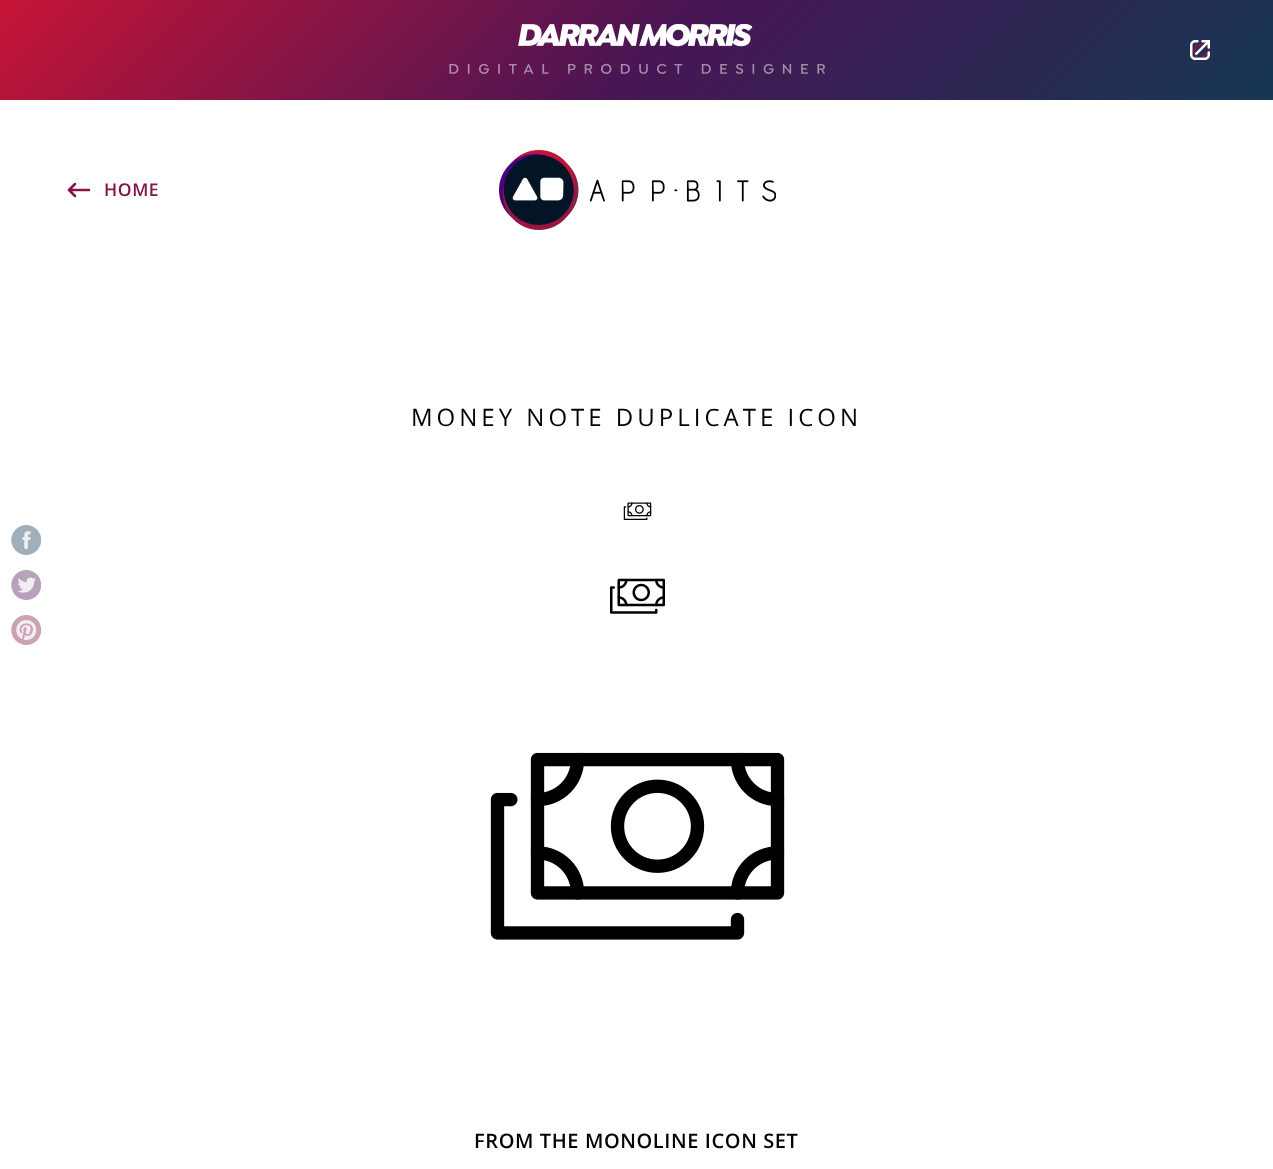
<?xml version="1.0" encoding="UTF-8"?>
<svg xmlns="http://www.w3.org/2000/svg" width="1273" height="1169">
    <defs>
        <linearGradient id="g1" gradientUnits="userSpaceOnUse" x1="980" y1="393" x2="293" y2="-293"><stop offset="0" stop-color="#153754"/><stop offset="0.49" stop-color="#491554"/><stop offset="1" stop-color="#C61435"/></linearGradient>
    </defs>
    <rect width="100%" height="100%" fill="#FFFFFF"/>
    <rect x="0" y="0" width="1273" height="100" fill="url(#g1)"/>
    <image x="449" y="24" width="376" height="50" href="img_01.png"/>
    <image x="1193" y="43" width="17" height="17" href="img_02.png"/>
    <image x="1190" y="40" width="20" height="20" href="img_03.png"/>
    <image x="499" y="150" width="277" height="80" href="img_04.png"/>
    <path d="M 71 190 H 89 M 75 196 L 69 190 L 75 184" fill="none" stroke="#841546" stroke-width="2.5" stroke-linecap="round" stroke-linejoin="round"/>
    <text x="104" y="196" font-family="Open Sans" font-size="17.5" font-weight="600" letter-spacing="0.6" fill="#841546">HOME</text>
    <image x="11" y="525" width="30" height="30" href="img_05.png"/>
    <image x="11" y="570" width="30" height="30" href="img_06.png"/>
    <image x="11" y="615" width="30" height="30" href="img_07.png"/>
    <text x="411" y="426" font-family="Open Sans" font-size="24" letter-spacing="4" fill="#060006">MONEY NOTE DUPLICATE ICON</text>
    <image x="623" y="502" width="29" height="18" href="img_08.png"/>
    <image x="610" y="578" width="55" height="36" href="img_09.png"/>
    <image x="490" y="752" width="295" height="188" href="img_10.png"/>
    <text x="474" y="1148" font-family="Open Sans" font-size="20" font-weight="600" letter-spacing="0.6" fill="#060006">FROM THE MONOLINE ICON SET</text>
</svg>
